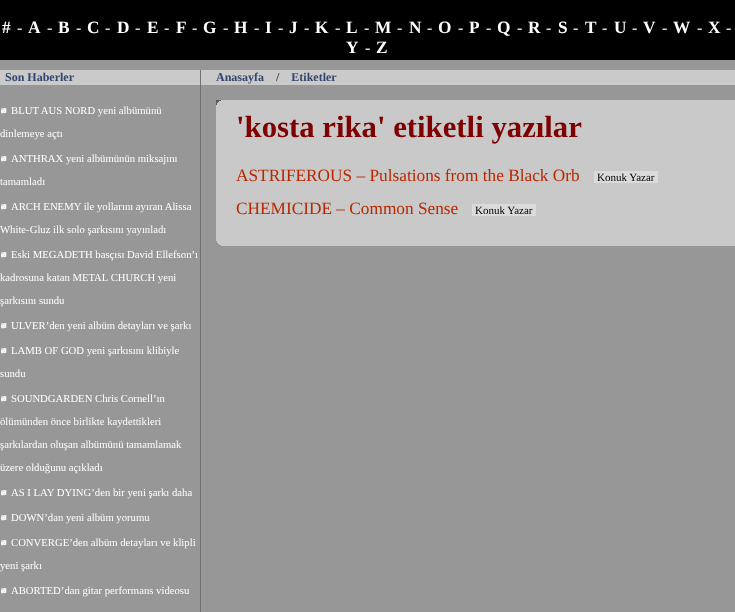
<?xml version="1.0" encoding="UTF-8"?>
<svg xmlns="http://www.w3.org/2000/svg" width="735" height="612">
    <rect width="100%" height="100%" fill="#979797"/>
    <rect x="0" y="0" width="735" height="60" fill="#000000"/>
    <text x="2" y="33" font-family="Liberation Serif" font-size="17.3" font-weight="700" letter-spacing="1" fill="#FFFFFF">#</text>
    <text x="17" y="33" font-family="Liberation Serif" font-size="16" letter-spacing="1" fill="#FFFFFF">-</text>
    <text x="28" y="33" font-family="Liberation Serif" font-size="17.3" font-weight="700" letter-spacing="1" fill="#FFFFFF">A</text>
    <text x="47" y="33" font-family="Liberation Serif" font-size="16" letter-spacing="1" fill="#FFFFFF">-</text>
    <text x="58" y="33" font-family="Liberation Serif" font-size="17.3" font-weight="700" letter-spacing="1" fill="#FFFFFF">B</text>
    <text x="76" y="33" font-family="Liberation Serif" font-size="16" letter-spacing="1" fill="#FFFFFF">-</text>
    <text x="87" y="33" font-family="Liberation Serif" font-size="17.3" font-weight="700" letter-spacing="1" fill="#FFFFFF">C</text>
    <text x="105" y="33" font-family="Liberation Serif" font-size="16" letter-spacing="1" fill="#FFFFFF">-</text>
    <text x="117" y="33" font-family="Liberation Serif" font-size="17.3" font-weight="700" letter-spacing="1" fill="#FFFFFF">D</text>
    <text x="135" y="33" font-family="Liberation Serif" font-size="16" letter-spacing="1" fill="#FFFFFF">-</text>
    <text x="147" y="33" font-family="Liberation Serif" font-size="17.3" font-weight="700" letter-spacing="1" fill="#FFFFFF">E</text>
    <text x="164" y="33" font-family="Liberation Serif" font-size="16" letter-spacing="1" fill="#FFFFFF">-</text>
    <text x="176" y="33" font-family="Liberation Serif" font-size="17.3" font-weight="700" letter-spacing="1" fill="#FFFFFF">F</text>
    <text x="192" y="33" font-family="Liberation Serif" font-size="16" letter-spacing="1" fill="#FFFFFF">-</text>
    <text x="203" y="33" font-family="Liberation Serif" font-size="17.3" font-weight="700" letter-spacing="1" fill="#FFFFFF">G</text>
    <text x="223" y="33" font-family="Liberation Serif" font-size="16" letter-spacing="1" fill="#FFFFFF">-</text>
    <text x="234" y="33" font-family="Liberation Serif" font-size="17.3" font-weight="700" letter-spacing="1" fill="#FFFFFF">H</text>
    <text x="254" y="33" font-family="Liberation Serif" font-size="16" letter-spacing="1" fill="#FFFFFF">-</text>
    <text x="265" y="33" font-family="Liberation Serif" font-size="17.3" font-weight="700" letter-spacing="1" fill="#FFFFFF">I</text>
    <text x="278" y="33" font-family="Liberation Serif" font-size="16" letter-spacing="1" fill="#FFFFFF">-</text>
    <text x="289" y="33" font-family="Liberation Serif" font-size="17.3" font-weight="700" letter-spacing="1" fill="#FFFFFF">J</text>
    <text x="304" y="33" font-family="Liberation Serif" font-size="16" letter-spacing="1" fill="#FFFFFF">-</text>
    <text x="315" y="33" font-family="Liberation Serif" font-size="17.3" font-weight="700" letter-spacing="1" fill="#FFFFFF">K</text>
    <text x="335" y="33" font-family="Liberation Serif" font-size="16" letter-spacing="1" fill="#FFFFFF">-</text>
    <text x="346" y="33" font-family="Liberation Serif" font-size="17.3" font-weight="700" letter-spacing="1" fill="#FFFFFF">L</text>
    <text x="364" y="33" font-family="Liberation Serif" font-size="16" letter-spacing="1" fill="#FFFFFF">-</text>
    <text x="375" y="33" font-family="Liberation Serif" font-size="17.3" font-weight="700" letter-spacing="1" fill="#FFFFFF">M</text>
    <text x="397" y="33" font-family="Liberation Serif" font-size="16" letter-spacing="1" fill="#FFFFFF">-</text>
    <text x="409" y="33" font-family="Liberation Serif" font-size="17.3" font-weight="700" letter-spacing="1" fill="#FFFFFF">N</text>
    <text x="427" y="33" font-family="Liberation Serif" font-size="16" letter-spacing="1" fill="#FFFFFF">-</text>
    <text x="438" y="33" font-family="Liberation Serif" font-size="17.3" font-weight="700" letter-spacing="1" fill="#FFFFFF">O</text>
    <text x="458" y="33" font-family="Liberation Serif" font-size="16" letter-spacing="1" fill="#FFFFFF">-</text>
    <text x="469" y="33" font-family="Liberation Serif" font-size="17.3" font-weight="700" letter-spacing="1" fill="#FFFFFF">P</text>
    <text x="486" y="33" font-family="Liberation Serif" font-size="16" letter-spacing="1" fill="#FFFFFF">-</text>
    <text x="497" y="33" font-family="Liberation Serif" font-size="17.3" font-weight="700" letter-spacing="1" fill="#FFFFFF">Q</text>
    <text x="517" y="33" font-family="Liberation Serif" font-size="16" letter-spacing="1" fill="#FFFFFF">-</text>
    <text x="528" y="33" font-family="Liberation Serif" font-size="17.3" font-weight="700" letter-spacing="1" fill="#FFFFFF">R</text>
    <text x="546" y="33" font-family="Liberation Serif" font-size="16" letter-spacing="1" fill="#FFFFFF">-</text>
    <text x="558" y="33" font-family="Liberation Serif" font-size="17.3" font-weight="700" letter-spacing="1" fill="#FFFFFF">S</text>
    <text x="573" y="33" font-family="Liberation Serif" font-size="16" letter-spacing="1" fill="#FFFFFF">-</text>
    <text x="585" y="33" font-family="Liberation Serif" font-size="17.3" font-weight="700" letter-spacing="1" fill="#FFFFFF">T</text>
    <text x="602" y="33" font-family="Liberation Serif" font-size="16" letter-spacing="1" fill="#FFFFFF">-</text>
    <text x="614" y="33" font-family="Liberation Serif" font-size="17.3" font-weight="700" letter-spacing="1" fill="#FFFFFF">U</text>
    <text x="632" y="33" font-family="Liberation Serif" font-size="16" letter-spacing="1" fill="#FFFFFF">-</text>
    <text x="643" y="33" font-family="Liberation Serif" font-size="17.3" font-weight="700" letter-spacing="1" fill="#FFFFFF">V</text>
    <text x="662" y="33" font-family="Liberation Serif" font-size="16" letter-spacing="1" fill="#FFFFFF">-</text>
    <text x="673" y="33" font-family="Liberation Serif" font-size="17.3" font-weight="700" letter-spacing="1" fill="#FFFFFF">W</text>
    <text x="697" y="33" font-family="Liberation Serif" font-size="16" letter-spacing="1" fill="#FFFFFF">-</text>
    <text x="708" y="33" font-family="Liberation Serif" font-size="17.3" font-weight="700" letter-spacing="1" fill="#FFFFFF">X</text>
    <text x="726" y="33" font-family="Liberation Serif" font-size="16" letter-spacing="1" fill="#FFFFFF">-</text>
    <text x="346" y="53" font-family="Liberation Serif" font-size="17.3" font-weight="700" letter-spacing="1" fill="#FFFFFF">Y</text>
    <text x="365" y="53" font-family="Liberation Serif" font-size="16" letter-spacing="1" fill="#FFFFFF">-</text>
    <text x="376" y="53" font-family="Liberation Serif" font-size="17.3" font-weight="700" letter-spacing="1" fill="#FFFFFF">Z</text>
    <rect x="0" y="70" width="735" height="15" fill="#CACACA"/>
    <text x="5" y="81" font-family="Liberation Serif" font-size="12" font-weight="700" fill="#31446B">Son Haberler</text>
    <rect x="200" y="70" width="1" height="542" fill="#727272"/>
    <text x="216" y="81" font-family="Liberation Serif" font-size="12" font-weight="700" fill="#31446B">Anasayfa</text>
    <text x="276" y="81" font-family="Liberation Serif" font-size="12" font-weight="700" fill="#31446B" xml:space="preserve">/    Etiketler</text>
    <image x="1" y="108" width="6" height="6" href="img_01.png"/>
    <text x="11" y="114" font-family="Liberation Serif" font-size="10.7" fill="#FFFFFF">BLUT AUS NORD yeni albümünü</text>
    <text x="0" y="137" font-family="Liberation Serif" font-size="10.7" fill="#FFFFFF">dinlemeye açtı</text>
    <image x="1" y="156" width="6" height="6" href="img_01.png"/>
    <text x="11" y="162" font-family="Liberation Serif" font-size="10.7" fill="#FFFFFF">ANTHRAX yeni albümünün miksajını</text>
    <text x="0" y="185" font-family="Liberation Serif" font-size="10.7" fill="#FFFFFF">tamamladı</text>
    <image x="1" y="204" width="6" height="6" href="img_01.png"/>
    <text x="11" y="210" font-family="Liberation Serif" font-size="10.7" fill="#FFFFFF">ARCH ENEMY ile yollarını ayıran Alissa</text>
    <text x="0" y="233" font-family="Liberation Serif" font-size="10.7" fill="#FFFFFF">White-Gluz ilk solo şarkısını yayınladı</text>
    <image x="1" y="252" width="6" height="6" href="img_01.png"/>
    <text x="11" y="258" font-family="Liberation Serif" font-size="10.7" fill="#FFFFFF">Eski MEGADETH basçısı David Ellefson’ı</text>
    <text x="0" y="281" font-family="Liberation Serif" font-size="10.7" fill="#FFFFFF">kadrosuna katan METAL CHURCH yeni</text>
    <text x="0" y="304" font-family="Liberation Serif" font-size="10.7" fill="#FFFFFF">şarkısını sundu</text>
    <image x="1" y="323" width="6" height="6" href="img_01.png"/>
    <text x="11" y="329" font-family="Liberation Serif" font-size="10.7" fill="#FFFFFF">ULVER’den yeni albüm detayları ve şarkı</text>
    <image x="1" y="348" width="6" height="6" href="img_01.png"/>
    <text x="11" y="354" font-family="Liberation Serif" font-size="10.7" fill="#FFFFFF">LAMB OF GOD yeni şarkısını klibiyle</text>
    <text x="0" y="377" font-family="Liberation Serif" font-size="10.7" fill="#FFFFFF">sundu</text>
    <image x="1" y="396" width="6" height="6" href="img_01.png"/>
    <text x="11" y="402" font-family="Liberation Serif" font-size="10.7" fill="#FFFFFF">SOUNDGARDEN Chris Cornell’ın</text>
    <text x="0" y="425" font-family="Liberation Serif" font-size="10.7" fill="#FFFFFF">ölümünden önce birlikte kaydettikleri</text>
    <text x="0" y="448" font-family="Liberation Serif" font-size="10.7" fill="#FFFFFF">şarkılardan oluşan albümünü tamamlamak</text>
    <text x="0" y="471" font-family="Liberation Serif" font-size="10.7" fill="#FFFFFF">üzere olduğunu açıkladı</text>
    <image x="1" y="490" width="6" height="6" href="img_01.png"/>
    <text x="11" y="496" font-family="Liberation Serif" font-size="10.7" fill="#FFFFFF">AS I LAY DYING’den bir yeni şarkı daha</text>
    <image x="1" y="515" width="6" height="6" href="img_01.png"/>
    <text x="11" y="521" font-family="Liberation Serif" font-size="10.7" fill="#FFFFFF">DOWN’dan yeni albüm yorumu</text>
    <image x="1" y="540" width="6" height="6" href="img_01.png"/>
    <text x="11" y="546" font-family="Liberation Serif" font-size="10.7" fill="#FFFFFF">CONVERGE’den albüm detayları ve klipli</text>
    <text x="0" y="569" font-family="Liberation Serif" font-size="10.7" fill="#FFFFFF">yeni şarkı</text>
    <image x="1" y="588" width="6" height="6" href="img_01.png"/>
    <text x="11" y="594" font-family="Liberation Serif" font-size="10.7" fill="#FFFFFF">ABORTED’dan gitar performans videosu</text>
    <rect x="216" y="105" width="519" height="136" fill="#C9C9C9"/>
    <rect x="216" y="100" width="5" height="5" fill="#5C5C5C"/>
    <rect x="221" y="100" width="514" height="1" fill="#C9C9C9"/>
    <rect x="219" y="101" width="516" height="1" fill="#C9C9C9"/>
    <rect x="218" y="102" width="517" height="1" fill="#C9C9C9"/>
    <rect x="217" y="103" width="518" height="2" fill="#C9C9C9"/>
    <text x="236" y="137" font-family="Liberation Serif" font-size="30.75" font-weight="700" fill="#7E0000">'kosta rika' etiketli yazılar</text>
    <text x="236" y="181" font-family="Liberation Serif" font-size="17.3" fill="#B92700">ASTRIFEROUS – Pulsations from the Black Orb</text>
    <rect x="594" y="171" width="64" height="12" fill="#DBDBDB"/>
    <text x="597" y="181" font-family="Liberation Serif" font-size="11" fill="#000000">Konuk Yazar</text>
    <text x="236" y="214" font-family="Liberation Serif" font-size="17.3" fill="#B92700">CHEMICIDE – Common Sense</text>
    <rect x="472" y="204" width="64" height="12" fill="#DBDBDB"/>
    <text x="475" y="214" font-family="Liberation Serif" font-size="11" fill="#000000">Konuk Yazar</text>
    <rect x="217" y="241" width="518" height="2" fill="#C9C9C9"/>
    <rect x="218" y="243" width="517" height="1" fill="#C9C9C9"/>
    <rect x="219" y="244" width="516" height="1" fill="#C9C9C9"/>
    <rect x="221" y="245" width="514" height="1" fill="#C9C9C9"/>
</svg>
